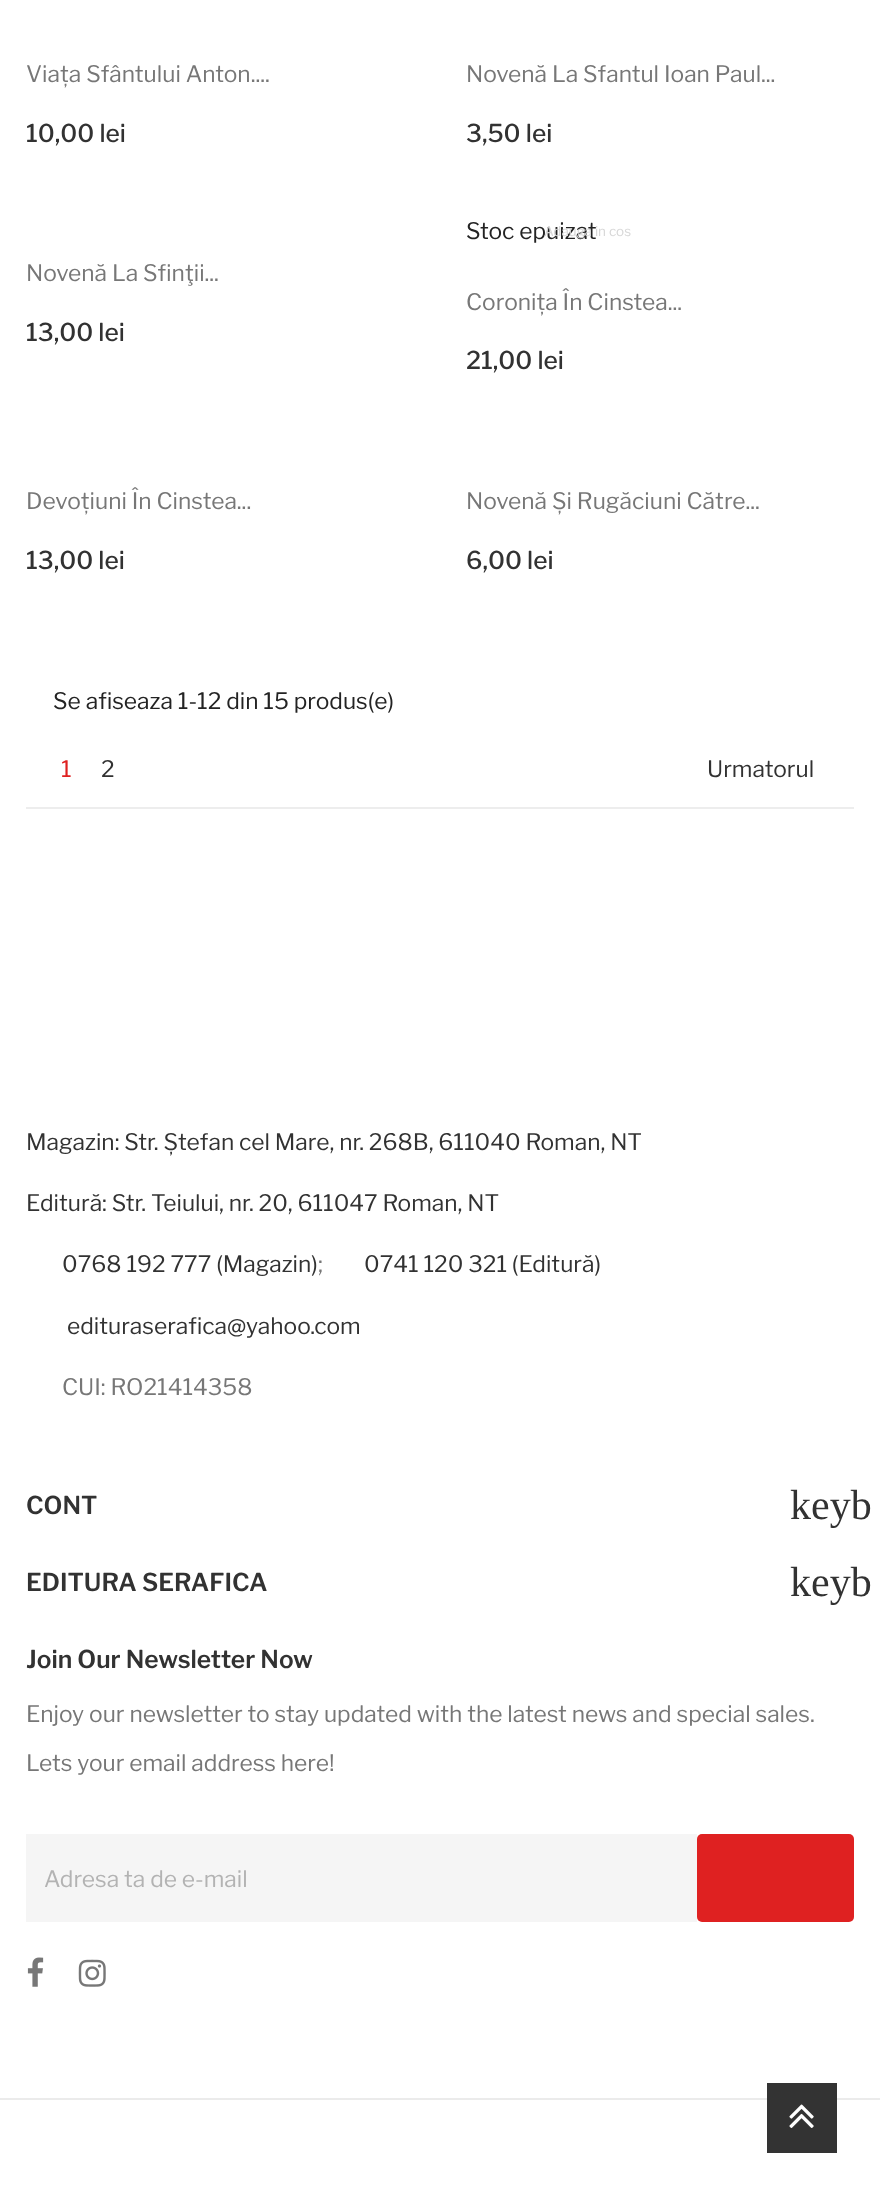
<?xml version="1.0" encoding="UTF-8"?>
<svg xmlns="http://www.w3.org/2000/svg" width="880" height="2195">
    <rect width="100%" height="100%" fill="#FFFFFF"/>
    <text x="26" y="82" font-family="Libre Franklin" font-size="22.75" fill="#777777">Viața Sfântului Anton....</text>
    <text x="26" y="142" font-family="Libre Franklin" font-size="24.5" font-weight="500" fill="#323232">10,00 lei</text>
    <text x="466" y="82" font-family="Libre Franklin" font-size="22.75" fill="#777777">Novenă La Sfantul Ioan Paul...</text>
    <text x="466" y="142" font-family="Libre Franklin" font-size="24.5" font-weight="500" fill="#323232">3,50 lei</text>
    <text x="26" y="281" font-family="Libre Franklin" font-size="22.75" fill="#777777">Novenă La Sfinţii...</text>
    <text x="26" y="341" font-family="Libre Franklin" font-size="24.5" font-weight="500" fill="#323232">13,00 lei</text>
    <text x="466" y="239" font-family="Libre Franklin" font-size="22.75" fill="#232323">Stoc epuizat</text>
    <text x="544" y="236" font-family="Libre Franklin" font-size="13.5" fill="#D7D7D7">Adauga in cos</text>
    <text x="466" y="310" font-family="Libre Franklin" font-size="22.75" fill="#777777">Coronița În Cinstea...</text>
    <text x="466" y="369" font-family="Libre Franklin" font-size="24.5" font-weight="500" fill="#323232">21,00 lei</text>
    <text x="26" y="509" font-family="Libre Franklin" font-size="22.75" fill="#777777">Devoțiuni În Cinstea...</text>
    <text x="26" y="569" font-family="Libre Franklin" font-size="24.5" font-weight="500" fill="#323232">13,00 lei</text>
    <text x="466" y="509" font-family="Libre Franklin" font-size="22.75" fill="#777777">Novenă Și Rugăciuni Către...</text>
    <text x="466" y="569" font-family="Libre Franklin" font-size="24.5" font-weight="500" fill="#323232">6,00 lei</text>
    <rect x="26" y="807" width="828" height="2" fill="#EDEDED"/>
    <text x="53" y="709" font-family="Libre Franklin" font-size="22.75" fill="#232323">Se afiseaza 1-12 din 15 produs(e)</text>
    <text x="61" y="777" font-family="Libre Franklin" font-size="22.75" letter-spacing="4" fill="#DF2121">1</text>
    <text x="101" y="777" font-family="Libre Franklin" font-size="22.75" letter-spacing="4" fill="#323232">2</text>
    <text x="707" y="777" font-family="Libre Franklin" font-size="22.75" fill="#323232">Urmatorul</text>
    <text x="26" y="1150" font-family="Libre Franklin" font-size="22.75" fill="#323232">Magazin: Str. Ștefan cel Mare, nr. 268B, 611040 Roman, NT</text>
    <text x="26" y="1211" font-family="Libre Franklin" font-size="22.75" fill="#323232">Editură: Str. Teiului, nr. 20, 611047 Roman, NT</text>
    <text x="62" y="1272" font-family="Libre Franklin" font-size="22.75" fill="#323232">0768 192 777 (Magazin)</text>
    <text x="318" y="1272" font-family="Libre Franklin" font-size="22.75" fill="#777777">;</text>
    <text x="364" y="1272" font-family="Libre Franklin" font-size="22.75" fill="#323232">0741 120 321 (Editură)</text>
    <text x="67" y="1334" font-family="Libre Franklin" font-size="22.75" fill="#323232">edituraserafica@yahoo.com</text>
    <text x="62" y="1395" font-family="Libre Franklin" font-size="22.75" fill="#777777">CUI: RO21414358</text>
    <text x="26" y="1514" font-family="Libre Franklin" font-size="24.5" font-weight="600" fill="#323232">CONT</text>
    <text x="790" y="1519" font-family="Liberation Serif" font-size="42" fill="#323232">keyb</text>
    <text x="26" y="1591" font-family="Libre Franklin" font-size="24.5" font-weight="600" fill="#323232">EDITURA SERAFICA</text>
    <text x="790" y="1596" font-family="Liberation Serif" font-size="42" fill="#323232">keyb</text>
    <text x="26" y="1668" font-family="Libre Franklin" font-size="24.5" font-weight="600" fill="#323232">Join Our Newsletter Now</text>
    <text x="26" y="1722" font-family="Libre Franklin" font-size="22.75" fill="#777777">Enjoy our newsletter to stay updated with the latest news and special sales.</text>
    <text x="26" y="1771" font-family="Libre Franklin" font-size="22.75" fill="#777777">Lets your email address here!</text>
    <rect x="26" y="1834" width="671" height="88" fill="#F5F5F5"/>
    <text x="44" y="1887" font-family="Libre Franklin" font-size="22.75" fill="#B3B3B3">Adresa ta de e-mail</text>
    <rect x="697" y="1834" width="157" height="88" rx="5" fill="#DF2121"/>
    <image x="27" y="1957" width="17" height="30" href="img_01.png"/>
    <image x="78" y="1959" width="28" height="28" href="img_02.png"/>
    <rect x="0" y="2098" width="880" height="2" fill="#EBEBEB"/>
    <rect x="767" y="2083" width="70" height="70" fill="#333333"/>
    <image x="789" y="2104" width="25" height="24" href="img_03.png"/>
</svg>
